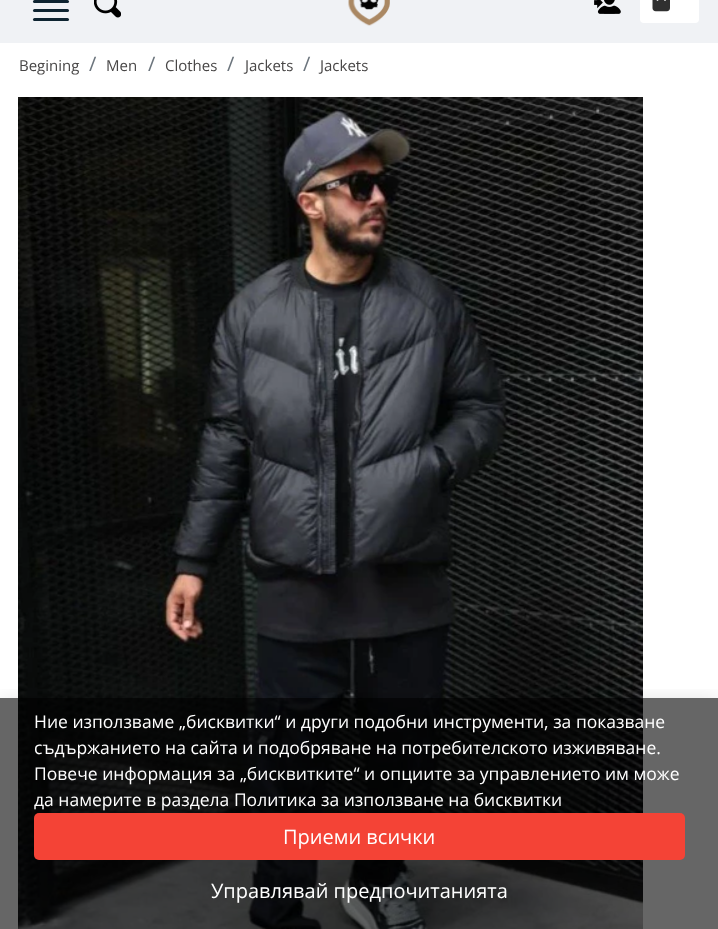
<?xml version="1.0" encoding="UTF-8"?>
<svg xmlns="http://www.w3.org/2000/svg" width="718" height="929">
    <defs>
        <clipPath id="clip1"><rect x="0" y="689" width="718" height="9"/></clipPath>
        <filter id="blur1" x="-50%" y="-200%" width="200%" height="500%"><feGaussianBlur stdDeviation="12.5"/></filter>
    </defs>
    <rect width="100%" height="100%" fill="#FFFFFF"/>
    <rect x="0" y="0" width="718" height="43" fill="#F0F2F5"/>
    <rect x="33" y="0" width="36" height="3" rx="1.5" fill="#0E2431"/>
    <rect x="33" y="9" width="36" height="3" rx="1.5" fill="#0E2431"/>
    <rect x="33" y="18" width="36" height="3" rx="1.5" fill="#0E2431"/>
    <image x="94" y="0" width="27" height="18" href="img_01.png"/>
    <image x="348" y="0" width="42" height="26" href="img_02.png"/>
    <image x="594" y="0" width="27" height="14" href="img_03.png"/>
    <rect x="640" y="-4" width="59" height="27" rx="4" fill="#FFFFFF"/>
    <image x="652" y="0" width="18" height="12" href="img_04.png"/>
    <text x="19" y="71" font-family="Open Sans" font-size="15" fill="#484646">Begining</text>
    <text x="89" y="71" font-family="Open Sans" font-size="20" fill="#6C757D">/</text>
    <text x="106" y="71" font-family="Open Sans" font-size="15" fill="#484646">Men</text>
    <text x="148" y="71" font-family="Open Sans" font-size="20" fill="#6C757D">/</text>
    <text x="165" y="71" font-family="Open Sans" font-size="15" fill="#484646">Clothes</text>
    <text x="227" y="71" font-family="Open Sans" font-size="20" fill="#6C757D">/</text>
    <text x="245" y="71" font-family="Open Sans" font-size="15" fill="#484646">Jackets</text>
    <text x="303" y="71" font-family="Open Sans" font-size="20" fill="#6C757D">/</text>
    <text x="320" y="71" font-family="Open Sans" font-size="15" fill="#484646">Jackets</text>
    <image x="18" y="97" width="625" height="832" href="img_05.png"/>
    <g clip-path="url(#clip1)">
        <rect x="0" y="705" width="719" height="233" fill="#000000" fill-opacity="0.19" filter="url(#blur1)"/>
    </g>
    <rect x="0" y="698" width="718" height="231" fill="#000000" fill-opacity="0.6"/>
    <text font-family="Open Sans" font-size="17.5" fill="#FFFFFF">
        <tspan x="34" y="728">Ние използваме „бисквитки“ и други подобни инструменти, за показване</tspan>
        <tspan x="34" y="754">съдържанието на сайта и подобряване на потребителското изживяване.</tspan>
        <tspan x="34" y="780">Повече информация за „бисквитките“ и опциите за управлението им може</tspan>
        <tspan x="34" y="806">да намерите в раздела Политика за използване на бисквитки</tspan>
    </text>
    <rect x="34" y="813" width="651" height="47" rx="5" fill="#F44336"/>
    <text x="283" y="844" font-family="Open Sans" font-size="20" fill="#FFFFFF">Приеми всички</text>
    <text x="211" y="898" font-family="Open Sans" font-size="20" fill="#FFFFFF">Управлявай предпочитанията</text>
</svg>
